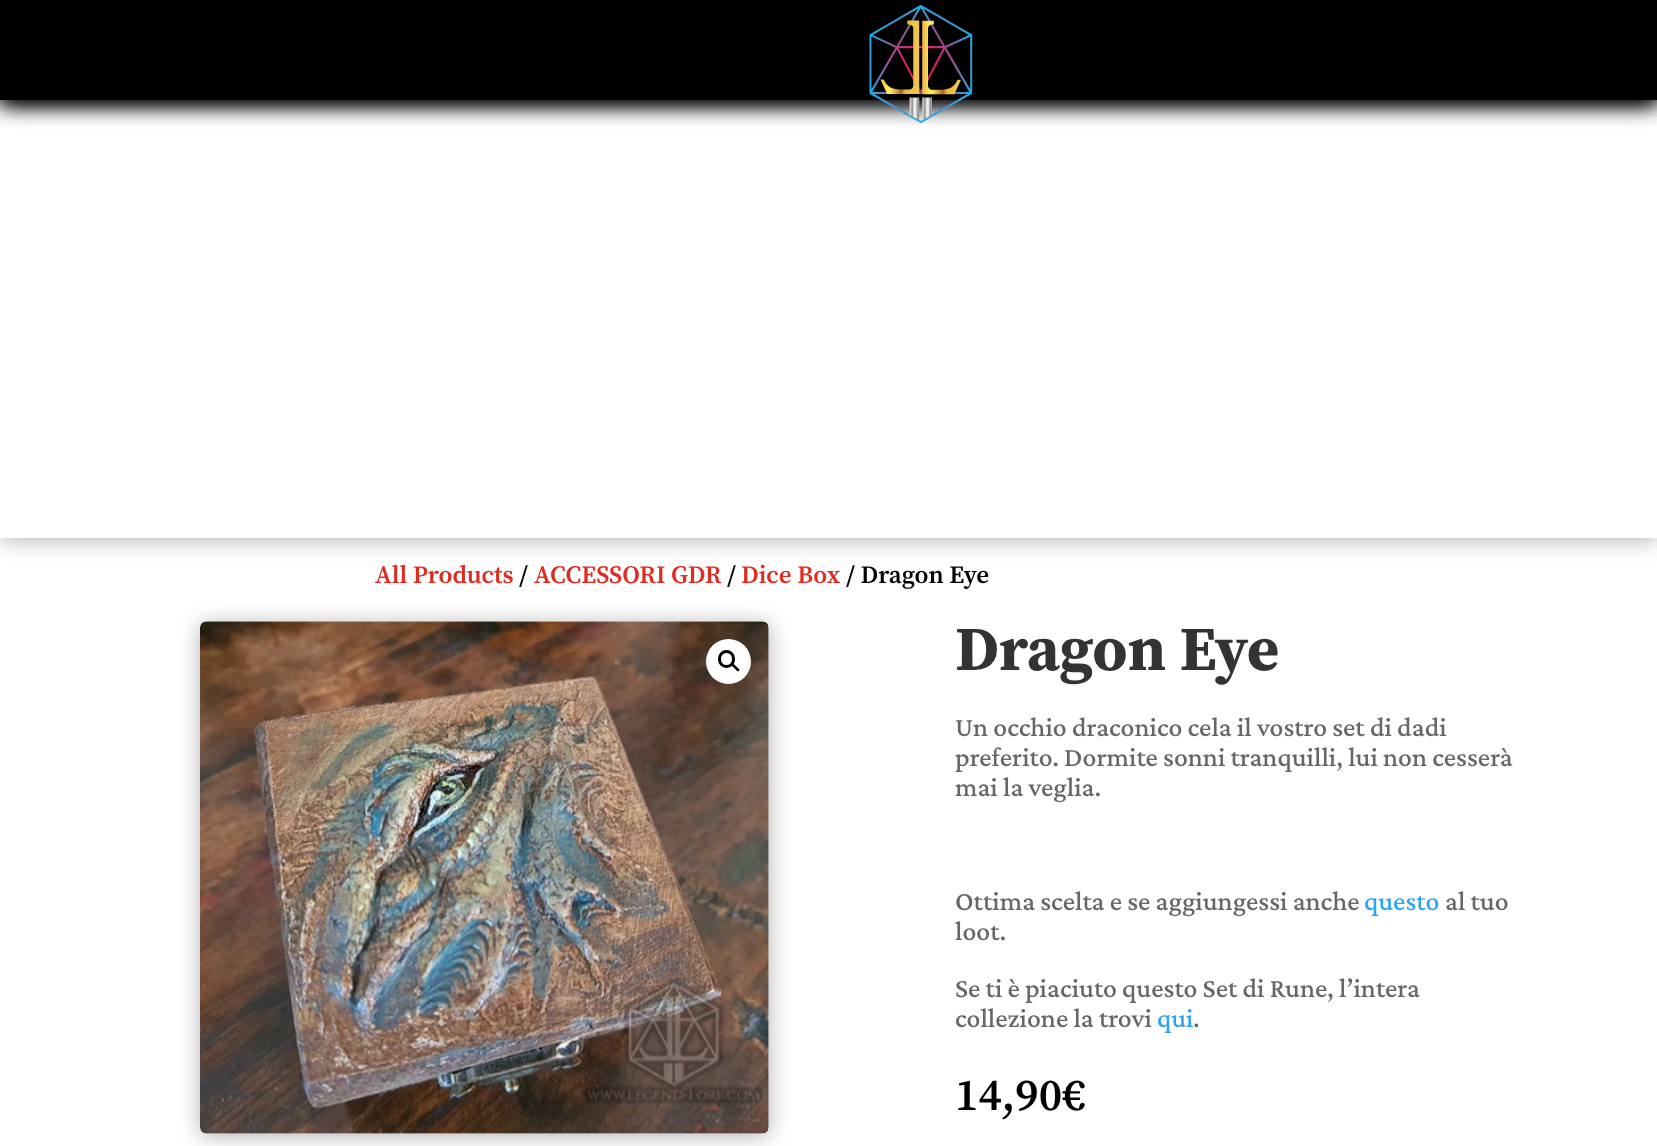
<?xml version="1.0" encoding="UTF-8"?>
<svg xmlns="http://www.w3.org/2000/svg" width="1657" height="1146">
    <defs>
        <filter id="blur1" x="-50%" y="-200%" width="200%" height="500%"><feGaussianBlur stdDeviation="11"/></filter>
    </defs>
    <rect width="100%" height="100%" fill="#FFFFFF"/>
    <rect x="0" y="103" width="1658" height="437" fill="#000000" fill-opacity="0.3" filter="url(#blur1)"/>
    <rect x="0" y="100" width="1657" height="438" fill="#FFFFFF"/>
    <rect x="0" y="3" width="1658" height="100" fill="#000000" filter="url(#blur1)"/>
    <rect x="0" y="3" width="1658" height="100" fill="#000000" filter="url(#blur1)"/>
    <rect x="0" y="0" width="1657" height="100" fill="#000000"/>
    <image x="869" y="4" width="104" height="120" href="img_01.png"/>
    <text x="375" y="583" font-family="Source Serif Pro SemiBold" font-size="25" font-weight="600" fill="#E02B20">All Products</text>
    <text x="519" y="583" font-family="Source Serif Pro SemiBold" font-size="25" font-weight="600" fill="#000000">/</text>
    <text x="534" y="583" font-family="Source Serif Pro SemiBold" font-size="25" font-weight="600" fill="#E02B20">ACCESSORI GDR</text>
    <text x="727" y="583" font-family="Source Serif Pro SemiBold" font-size="25" font-weight="600" fill="#000000">/</text>
    <text x="741" y="583" font-family="Source Serif Pro SemiBold" font-size="25" font-weight="600" fill="#E02B20">Dice Box</text>
    <text x="846" y="583" font-family="Source Serif Pro SemiBold" font-size="25" font-weight="600" fill="#000000">/ Dragon Eye</text>
    <rect x="200" y="624" width="569" height="512" rx="6" fill="#000000" fill-opacity="0.3" filter="url(#blur1)"/>
    <image x="200" y="621" width="569" height="513" href="img_02.png"/>
    <circle cx="728.5" cy="661.5" r="22.5" fill="#FFFFFF"/>
    <rect x="719.5" y="651.5" width="14" height="15" rx="7" fill="none" stroke="#000000" stroke-width="3"/>
    <path d="M 732 664 C 733.5 662.5 735.5 666 736.5 666.5 C 737 667.5 740.5 669.5 739 671 C 737.5 672.5 735.5 669 734.5 668.5 C 734 667.5 730.5 665.5 732 664 Z" fill="#000000"/>
    <text x="955" y="670" font-family="Source Serif Pro" font-size="62.5" font-weight="700" fill="#333333">Dragon Eye</text>
    <text font-family="Crimson Pro" font-size="27.5" font-weight="500" fill="#666666">
        <tspan x="955" y="736">Un occhio draconico cela il vostro set di dadi</tspan>
        <tspan x="955" y="766">preferito. Dormite sonni tranquilli, lui non cesserà</tspan>
        <tspan x="955" y="796">mai la veglia.</tspan>
    </text>
    <text x="955" y="910" font-family="Crimson Pro" font-size="27.5" font-weight="500" fill="#666666">Ottima scelta e se aggiungessi anche</text>
    <text x="1364" y="910" font-family="Crimson Pro" font-size="27.5" font-weight="500" fill="#2EA3F2">questo</text>
    <text x="1445" y="910" font-family="Crimson Pro" font-size="27.5" font-weight="500" fill="#666666">al tuo</text>
    <text x="955" y="940" font-family="Crimson Pro" font-size="27.5" font-weight="500" fill="#666666">loot.</text>
    <text font-family="Crimson Pro" font-size="27.5" font-weight="500" fill="#666666">
        <tspan x="955" y="997">Se ti è piaciuto questo Set di Rune, l’intera</tspan>
        <tspan x="955" y="1027">collezione la trovi</tspan>
    </text>
    <text x="1157" y="1027" font-family="Crimson Pro" font-size="27.5" font-weight="500" fill="#2EA3F2">qui</text>
    <text x="1193" y="1027" font-family="Crimson Pro" font-size="27.5" font-weight="500" fill="#666666">.</text>
    <text x="955" y="1110" font-family="Source Serif Pro SemiBold" font-size="45" font-weight="600" fill="#000000">14,90€</text>
</svg>
